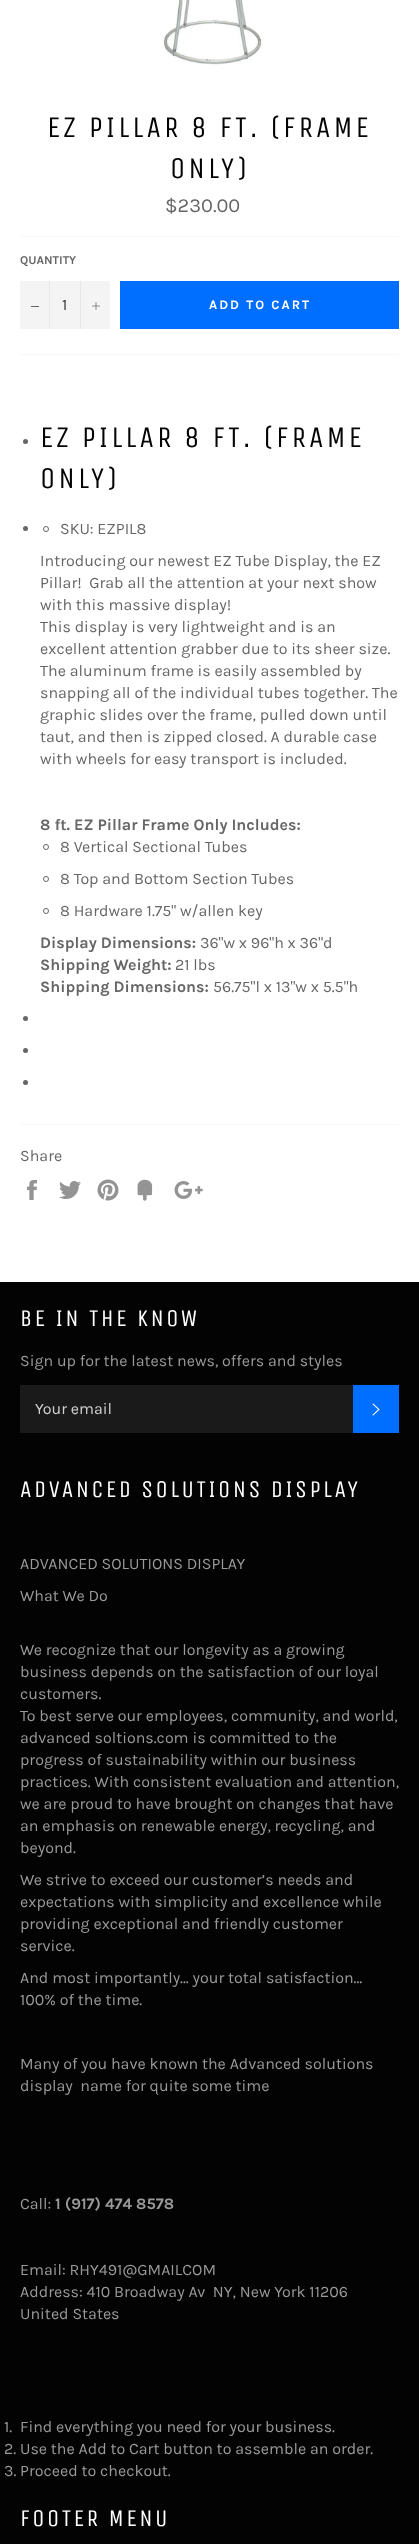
<?xml version="1.0" encoding="UTF-8"?>
<svg xmlns="http://www.w3.org/2000/svg" width="419" height="2544">
    <rect width="100%" height="100%" fill="#FFFFFF"/>
    <image x="162" y="0" width="102" height="65" href="img_01.png"/>
    <text x="47" y="137" font-family="Unica One" font-size="30" letter-spacing="3" fill="#030303">EZ PILLAR 8 FT. (FRAME</text>
    <text x="170" y="178" font-family="Unica One" font-size="30" letter-spacing="3" fill="#030303">ONLY)</text>
    <text x="165" y="212" font-family="Karla" font-size="20" fill="#666666">$230.00</text>
    <rect x="20" y="236" width="379" height="1" fill="#F7F7F7"/>
    <text x="20" y="264" font-family="Karla" font-size="12" font-weight="700" fill="#666666">QUANTITY</text>
    <rect x="20" y="281" width="90" height="48" fill="#F4F4F4"/>
    <rect x="49" y="281" width="1" height="48" fill="#E7E7E7"/>
    <rect x="31" y="306" width="8" height="1" fill="#666666"/>
    <text x="62" y="310" font-family="Karla" font-size="16" fill="#333333">1</text>
    <rect x="80" y="281" width="1" height="48" fill="#E7E7E7"/>
    <image x="92" y="302" width="8" height="8" href="img_02.png"/>
    <rect x="120" y="281" width="279" height="48" fill="#006EFF"/>
    <text x="209" y="309" font-family="Karla" font-size="13" font-weight="700" letter-spacing="2" fill="#FFFFFF">ADD TO CART</text>
    <rect x="20" y="354" width="379" height="1" fill="#F7F7F7"/>
    <circle cx="25.5" cy="441.5" r="2.5" fill="#666666"/>
    <text font-family="Unica One" font-size="30" letter-spacing="3" fill="#030303">
        <tspan x="40" y="447">EZ PILLAR 8 FT. (FRAME</tspan>
        <tspan x="40" y="488">ONLY)</tspan>
    </text>
    <circle cx="25.5" cy="528.5" r="2.5" fill="#666666"/>
    <circle cx="46" cy="529" r="2.5" fill="none" stroke="#666666"/>
    <text x="60" y="534" font-family="Karla" font-size="16" fill="#666666">SKU: EZPIL8</text>
    <text font-family="Karla" font-size="16" fill="#666666" xml:space="preserve"><tspan x="40" y="566">Introducing our newest EZ Tube Display, the EZ</tspan><tspan x="40" y="588">Pillar!  Grab all the attention at your next show</tspan><tspan x="40" y="610">with this massive display!</tspan><tspan x="40" y="632">This display is very lightweight and is an</tspan><tspan x="40" y="654">excellent attention grabber due to its sheer size.</tspan><tspan x="40" y="676">The aluminum frame is easily assembled by</tspan><tspan x="40" y="698">snapping all of the individual tubes together. The</tspan><tspan x="40" y="720">graphic slides over the frame, pulled down until</tspan><tspan x="40" y="742">taut, and then is zipped closed. A durable case</tspan><tspan x="40" y="764">with wheels for easy transport is included.</tspan></text>
    <text x="40" y="830" font-family="Karla" font-size="16" font-weight="700" fill="#666666">8 ft. EZ Pillar Frame Only Includes:</text>
    <circle cx="46" cy="847" r="2.5" fill="none" stroke="#666666"/>
    <text x="60" y="852" font-family="Karla" font-size="16" fill="#666666">8 Vertical Sectional Tubes</text>
    <circle cx="46" cy="879" r="2.5" fill="none" stroke="#666666"/>
    <text x="60" y="884" font-family="Karla" font-size="16" fill="#666666">8 Top and Bottom Section Tubes</text>
    <circle cx="46" cy="911" r="2.5" fill="none" stroke="#666666"/>
    <text x="60" y="916" font-family="Karla" font-size="16" fill="#666666">8 Hardware 1.75" w/allen key</text>
    <text x="40" y="948" font-family="Karla" font-size="16" font-weight="700" fill="#666666">Display Dimensions:</text>
    <text x="200" y="948" font-family="Karla" font-size="16" fill="#666666">36"w x 96"h x 36"d</text>
    <text x="40" y="970" font-family="Karla" font-size="16" font-weight="700" fill="#666666">Shipping Weight:</text>
    <text x="175" y="970" font-family="Karla" font-size="16" fill="#666666">21 lbs</text>
    <text x="40" y="992" font-family="Karla" font-size="16" font-weight="700" fill="#666666">Shipping Dimensions:</text>
    <text x="213" y="992" font-family="Karla" font-size="16" fill="#666666">56.75"l x 13"w x 5.5"h</text>
    <circle cx="25.5" cy="1018.5" r="2.5" fill="#666666"/>
    <circle cx="25.5" cy="1050.5" r="2.5" fill="#666666"/>
    <circle cx="25.5" cy="1082.5" r="2.5" fill="#666666"/>
    <rect x="20" y="1124" width="379" height="1" fill="#F7F7F7"/>
    <text x="20" y="1161" font-family="Karla" font-size="16" fill="#666666">Share</text>
    <image x="27" y="1180" width="10" height="20" href="img_03.png"/>
    <image x="59" y="1181" width="22" height="18" href="img_04.png"/>
    <image x="97" y="1179" width="22" height="22" href="img_05.png"/>
    <image x="137" y="1179" width="16" height="22" href="img_06.png"/>
    <image x="174" y="1181" width="29" height="18" href="img_07.png"/>
    <rect x="0" y="1282" width="419" height="1262" fill="#030303"/>
    <text x="20" y="1326" font-family="Unica One" font-size="24" letter-spacing="2.4" fill="#FFFFFF">BE IN THE KNOW</text>
    <text x="20" y="1366" font-family="Karla" font-size="16" fill="#9A9A9A">Sign up for the latest news, offers and styles</text>
    <rect x="20" y="1385" width="333" height="48" fill="#1A1A1A"/>
    <text x="35" y="1414" font-family="Karla" font-size="16" fill="#D1D1D1">Your email</text>
    <rect x="353" y="1385" width="46" height="48" fill="#006EFF"/>
    <image x="372" y="1403" width="8" height="13" href="img_08.png"/>
    <text x="20" y="1497" font-family="Unica One" font-size="24" letter-spacing="2.4" fill="#FFFFFF">ADVANCED SOLUTIONS DISPLAY</text>
    <text x="20" y="1569" font-family="Karla" font-size="16" fill="#9A9A9A">ADVANCED SOLUTIONS DISPLAY</text>
    <text x="20" y="1601" font-family="Karla" font-size="16" fill="#9A9A9A">What We Do</text>
    <text font-family="Karla" font-size="16" fill="#9A9A9A">
        <tspan x="20" y="1655">We recognize that our longevity as a growing</tspan>
        <tspan x="20" y="1677">business depends on the satisfaction of our loyal</tspan>
        <tspan x="20" y="1699">customers.</tspan>
        <tspan x="20" y="1721">To best serve our employees, community, and world,</tspan>
        <tspan x="20" y="1743">advanced soltions.com is committed to the</tspan>
        <tspan x="20" y="1765">progress of sustainability within our business</tspan>
        <tspan x="20" y="1787">practices. With consistent evaluation and attention,</tspan>
        <tspan x="20" y="1809">we are proud to have brought on changes that have</tspan>
        <tspan x="20" y="1831">an emphasis on renewable energy, recycling, and</tspan>
        <tspan x="20" y="1853">beyond.</tspan>
    </text>
    <text font-family="Karla" font-size="16" fill="#9A9A9A">
        <tspan x="20" y="1885">We strive to exceed our customer’s needs and</tspan>
        <tspan x="20" y="1907">expectations with simplicity and excellence while</tspan>
        <tspan x="20" y="1929">providing exceptional and friendly customer</tspan>
        <tspan x="20" y="1951">service.</tspan>
    </text>
    <text font-family="Karla" font-size="16" fill="#9A9A9A">
        <tspan x="20" y="1983">And most importantly… your total satisfaction…</tspan>
        <tspan x="20" y="2005">100% of the time.</tspan>
    </text>
    <text font-family="Karla" font-size="16" fill="#9A9A9A" xml:space="preserve"><tspan x="20" y="2069">Many of you have known the Advanced solutions</tspan><tspan x="20" y="2091">display  name for quite some time</tspan></text>
    <text x="20" y="2209" font-family="Karla" font-size="16" fill="#9A9A9A">Call:</text>
    <text x="55" y="2209" font-family="Karla" font-size="16" font-weight="700" fill="#9A9A9A">1 (917) 474 8578</text>
    <text font-family="Karla" font-size="16" fill="#9A9A9A" xml:space="preserve"><tspan x="20" y="2275">Email: RHY491@GMAILCOM</tspan><tspan x="20" y="2297">Address: 410 Broadway Av  NY, New York 11206</tspan><tspan x="20" y="2319">United States</tspan></text>
    <text x="4" y="2432" font-family="Karla" font-size="16" fill="#9A9A9A">1.</text>
    <text x="20" y="2432" font-family="Karla" font-size="16" fill="#9A9A9A">Find everything you need for your business.</text>
    <text font-family="Karla" font-size="16" fill="#9A9A9A">
        <tspan x="4" y="2454">2. Use the Add to Cart button to assemble an order.</tspan>
        <tspan x="4" y="2476">3. Proceed to checkout.</tspan>
    </text>
    <text x="20" y="2526" font-family="Unica One" font-size="24" letter-spacing="2.4" fill="#FFFFFF">FOOTER MENU</text>
</svg>
